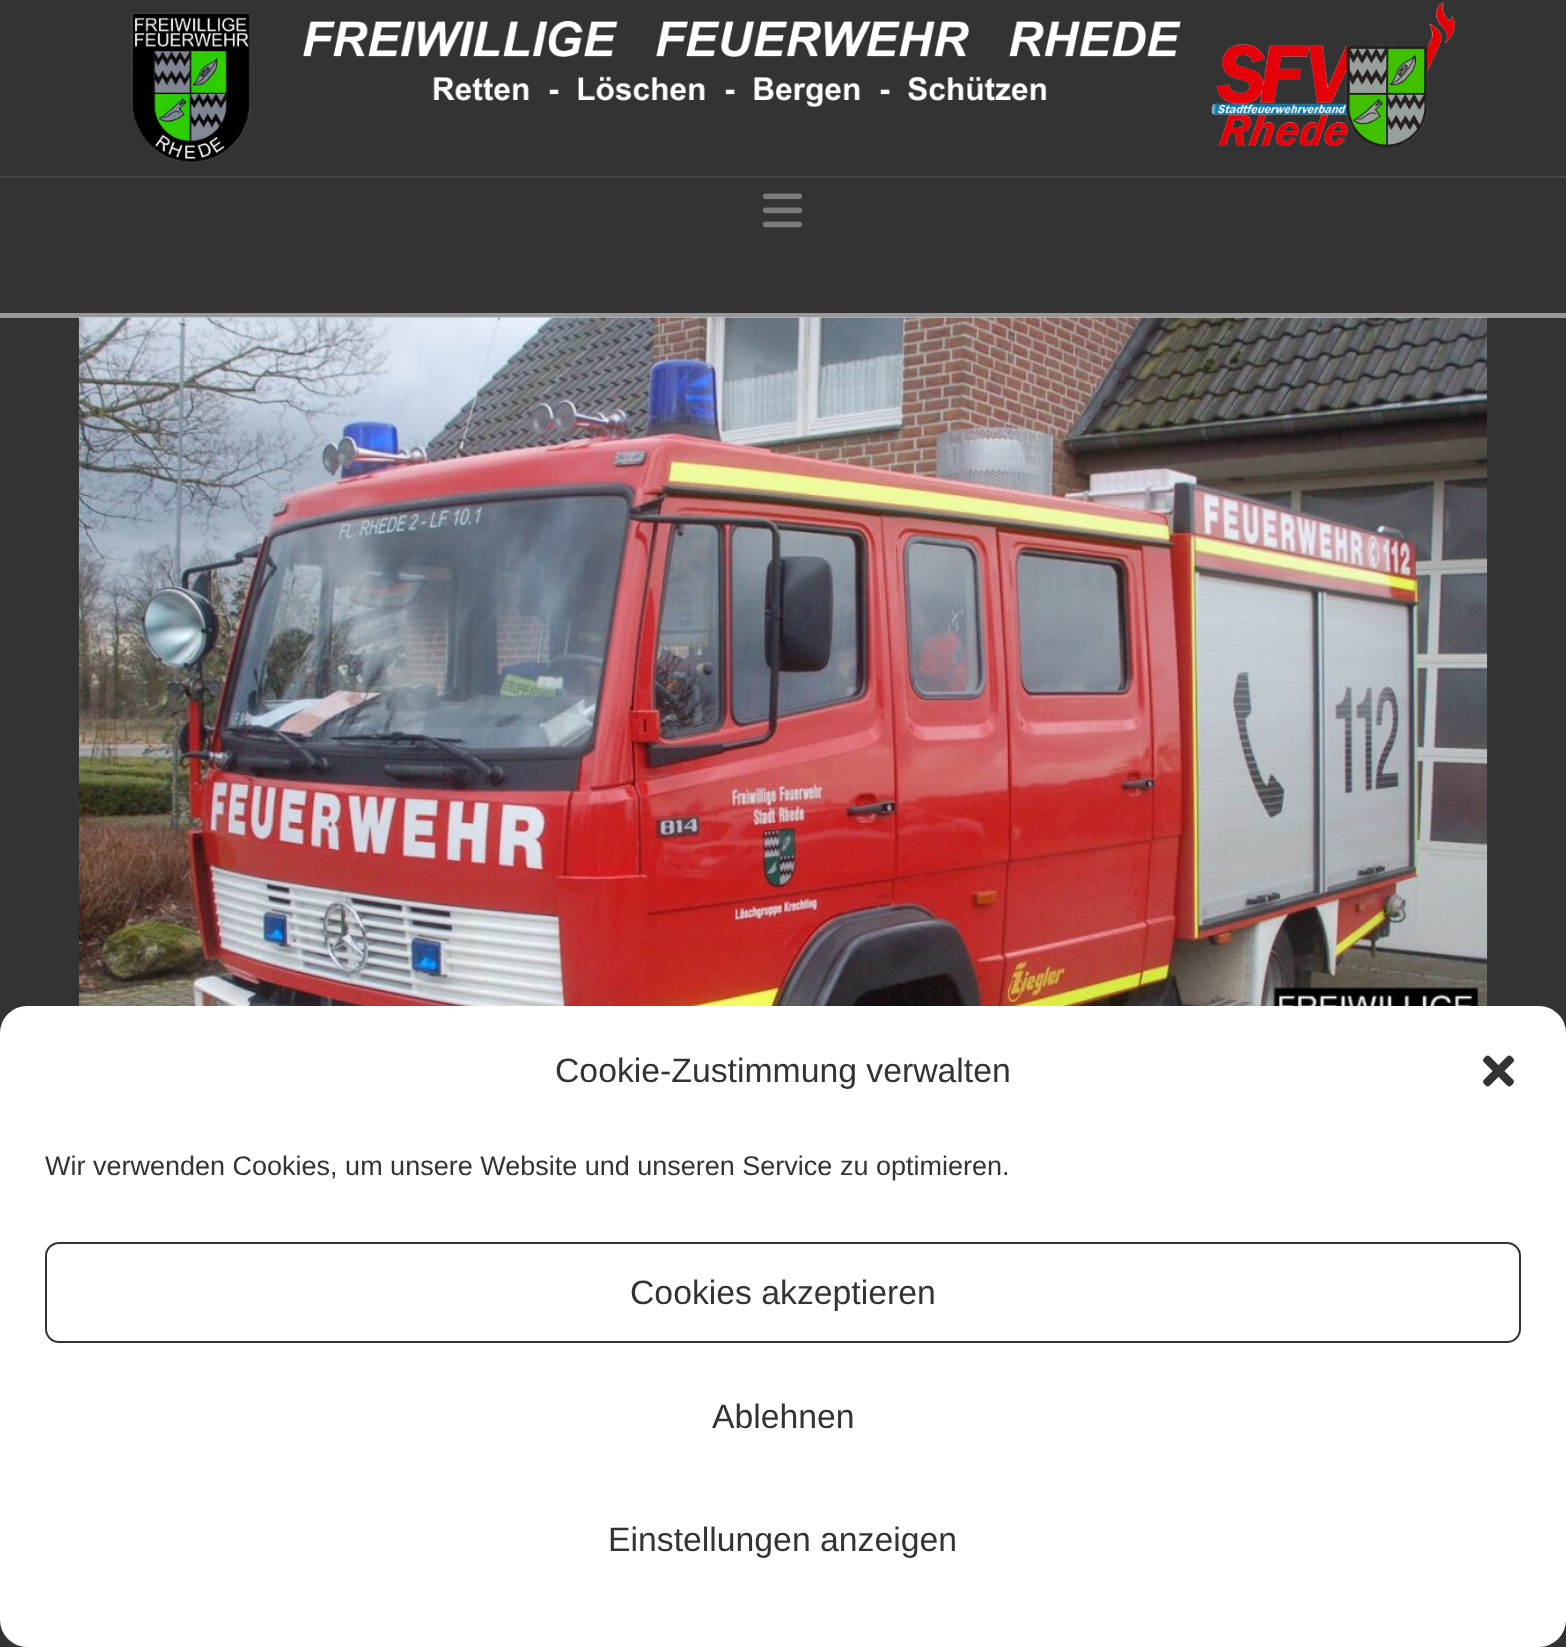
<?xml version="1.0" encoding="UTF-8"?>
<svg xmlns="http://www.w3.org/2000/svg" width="1566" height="1647">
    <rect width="100%" height="100%" fill="#333333"/>
    <rect x="0" y="176" width="1566" height="2" fill="#474747"/>
    <image x="131" y="2" width="1324" height="161" href="img_01.png"/>
    <image x="78" y="317" width="1410" height="689" href="img_03.png"/>
    <rect x="0" y="313" width="1566" height="5" fill="#FFFFFF" fill-opacity="0.5"/>
    <image x="762" y="193" width="41" height="35" href="img_02.png"/>
    <rect x="0" y="1006" width="1566" height="641" rx="27" fill="#FFFFFF"/>
    <text x="555" y="1082" font-family="Liberation Sans" font-size="33.75" fill="#333333">Cookie-Zustimmung verwalten</text>
    <image x="1483" y="1055" width="31" height="32" href="img_04.png"/>
    <text x="45" y="1175" font-family="Liberation Sans" font-size="27" fill="#333333">Wir verwenden Cookies, um unsere Website und unseren Service zu optimieren.</text>
    <rect x="46" y="1243" width="1474" height="99" rx="13" fill="none" stroke="#333333" stroke-width="2"/>
    <text x="630" y="1304" font-family="Liberation Sans" font-size="33.75" fill="#333333">Cookies akzeptieren</text>
    <text x="712" y="1428" font-family="Liberation Sans" font-size="33.75" fill="#333333">Ablehnen</text>
    <text x="608" y="1551" font-family="Liberation Sans" font-size="33.75" fill="#333333">Einstellungen anzeigen</text>
</svg>
